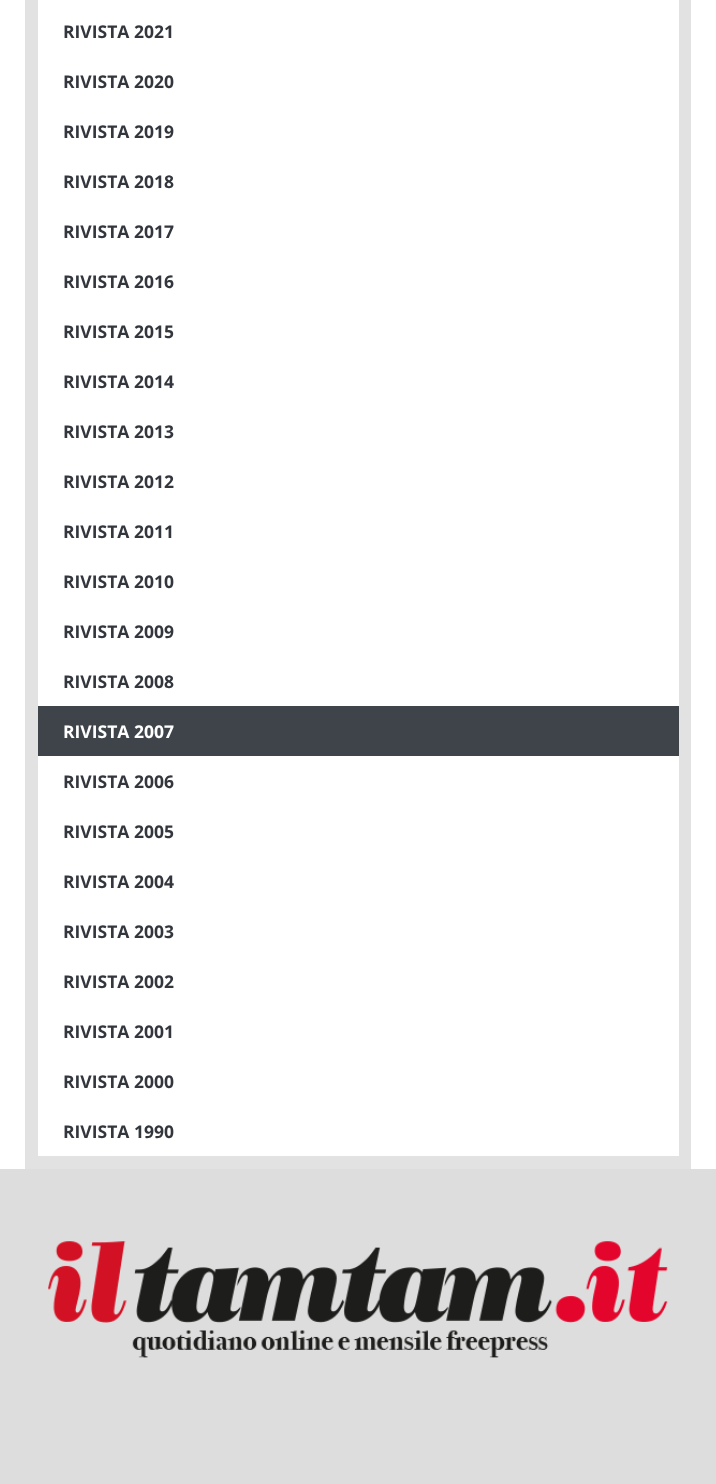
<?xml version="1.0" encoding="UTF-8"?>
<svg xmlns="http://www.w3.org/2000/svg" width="716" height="1484">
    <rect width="100%" height="100%" fill="#FFFFFF"/>
    <rect x="25" y="0" width="666" height="1169" fill="#E2E2E2"/>
    <rect x="38" y="0" width="641" height="1156" fill="#FFFFFF"/>
    <text x="63" y="38" font-family="Open Sans" font-size="17.5" font-weight="700" fill="#33373D">RIVISTA 2021</text>
    <text x="63" y="88" font-family="Open Sans" font-size="17.5" font-weight="700" fill="#33373D">RIVISTA 2020</text>
    <text x="63" y="138" font-family="Open Sans" font-size="17.5" font-weight="700" fill="#33373D">RIVISTA 2019</text>
    <text x="63" y="188" font-family="Open Sans" font-size="17.5" font-weight="700" fill="#33373D">RIVISTA 2018</text>
    <text x="63" y="238" font-family="Open Sans" font-size="17.5" font-weight="700" fill="#33373D">RIVISTA 2017</text>
    <text x="63" y="288" font-family="Open Sans" font-size="17.5" font-weight="700" fill="#33373D">RIVISTA 2016</text>
    <text x="63" y="338" font-family="Open Sans" font-size="17.5" font-weight="700" fill="#33373D">RIVISTA 2015</text>
    <text x="63" y="388" font-family="Open Sans" font-size="17.5" font-weight="700" fill="#33373D">RIVISTA 2014</text>
    <text x="63" y="438" font-family="Open Sans" font-size="17.5" font-weight="700" fill="#33373D">RIVISTA 2013</text>
    <text x="63" y="488" font-family="Open Sans" font-size="17.5" font-weight="700" fill="#33373D">RIVISTA 2012</text>
    <text x="63" y="538" font-family="Open Sans" font-size="17.5" font-weight="700" fill="#33373D">RIVISTA 2011</text>
    <text x="63" y="588" font-family="Open Sans" font-size="17.5" font-weight="700" fill="#33373D">RIVISTA 2010</text>
    <text x="63" y="638" font-family="Open Sans" font-size="17.5" font-weight="700" fill="#33373D">RIVISTA 2009</text>
    <text x="63" y="688" font-family="Open Sans" font-size="17.5" font-weight="700" fill="#33373D">RIVISTA 2008</text>
    <rect x="38" y="706" width="641" height="50" fill="#3F444B"/>
    <text x="63" y="738" font-family="Open Sans" font-size="17.5" font-weight="700" fill="#FFFFFF">RIVISTA 2007</text>
    <text x="63" y="788" font-family="Open Sans" font-size="17.5" font-weight="700" fill="#33373D">RIVISTA 2006</text>
    <text x="63" y="838" font-family="Open Sans" font-size="17.5" font-weight="700" fill="#33373D">RIVISTA 2005</text>
    <text x="63" y="888" font-family="Open Sans" font-size="17.5" font-weight="700" fill="#33373D">RIVISTA 2004</text>
    <text x="63" y="938" font-family="Open Sans" font-size="17.5" font-weight="700" fill="#33373D">RIVISTA 2003</text>
    <text x="63" y="988" font-family="Open Sans" font-size="17.5" font-weight="700" fill="#33373D">RIVISTA 2002</text>
    <text x="63" y="1038" font-family="Open Sans" font-size="17.5" font-weight="700" fill="#33373D">RIVISTA 2001</text>
    <text x="63" y="1088" font-family="Open Sans" font-size="17.5" font-weight="700" fill="#33373D">RIVISTA 2000</text>
    <text x="63" y="1138" font-family="Open Sans" font-size="17.5" font-weight="700" fill="#33373D">RIVISTA 1990</text>
    <rect x="0" y="1169" width="716" height="315" fill="#DDDDDD"/>
    <image x="48" y="1241" width="620" height="117" href="img_01.png"/>
</svg>
